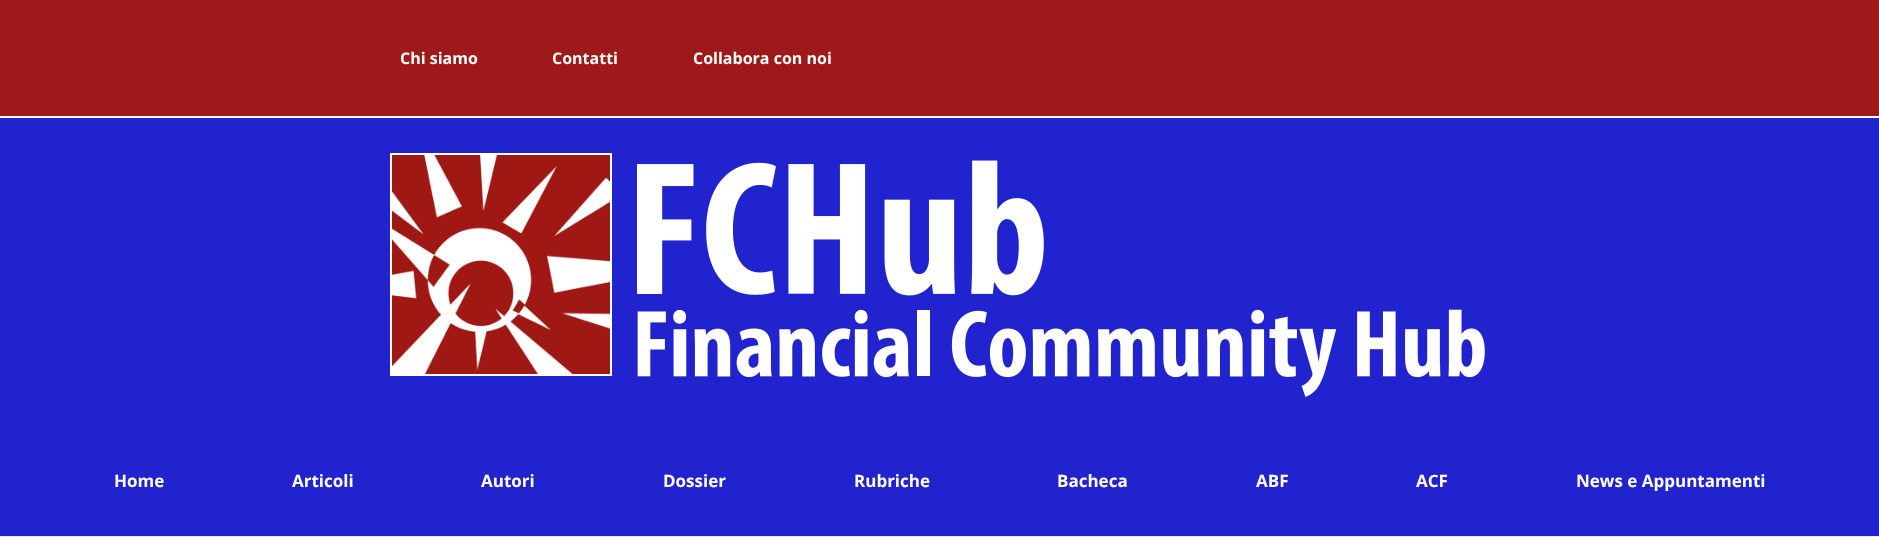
<?xml version="1.0" encoding="UTF-8"?>
<svg xmlns="http://www.w3.org/2000/svg" width="1879" height="537">
    <rect width="100%" height="100%" fill="#FFFFFF"/>
    <rect x="0" y="0" width="1879" height="116" fill="#9E1A1A"/>
    <text x="400" y="64" font-family="Open Sans" font-size="16" font-weight="700" fill="#FFFFFF">Chi siamo</text>
    <text x="552" y="64" font-family="Open Sans" font-size="16" font-weight="700" fill="#FFFFFF">Contatti</text>
    <text x="693" y="64" font-family="Open Sans" font-size="16" font-weight="700" fill="#FFFFFF">Collabora con noi</text>
    <rect x="0" y="118" width="1879" height="418" fill="#2023CE"/>
    <rect x="391" y="154" width="220" height="221" fill="none" stroke="#FFFFFF" stroke-width="2"/>
    <image x="392" y="155" width="218" height="219" href="img_01.png"/>
    <image x="637" y="160" width="848" height="237" href="img_02.png"/>
    <text x="114" y="487" font-family="Open Sans" font-size="17" font-weight="700" fill="#FFFFFF">Home</text>
    <text x="292" y="487" font-family="Open Sans" font-size="17" font-weight="700" fill="#FFFFFF">Articoli</text>
    <text x="481" y="487" font-family="Open Sans" font-size="17" font-weight="700" fill="#FFFFFF">Autori</text>
    <text x="663" y="487" font-family="Open Sans" font-size="17" font-weight="700" fill="#FFFFFF">Dossier</text>
    <text x="854" y="487" font-family="Open Sans" font-size="17" font-weight="700" fill="#FFFFFF">Rubriche</text>
    <text x="1057" y="487" font-family="Open Sans" font-size="17" font-weight="700" fill="#FFFFFF">Bacheca</text>
    <text x="1256" y="487" font-family="Open Sans" font-size="17" font-weight="700" fill="#FFFFFF">ABF</text>
    <text x="1416" y="487" font-family="Open Sans" font-size="17" font-weight="700" fill="#FFFFFF">ACF</text>
    <text x="1576" y="487" font-family="Open Sans" font-size="17" font-weight="700" fill="#FFFFFF">News e Appuntamenti</text>
    <rect x="0" y="536" width="1879" height="1" fill="#EDEDED"/>
</svg>
